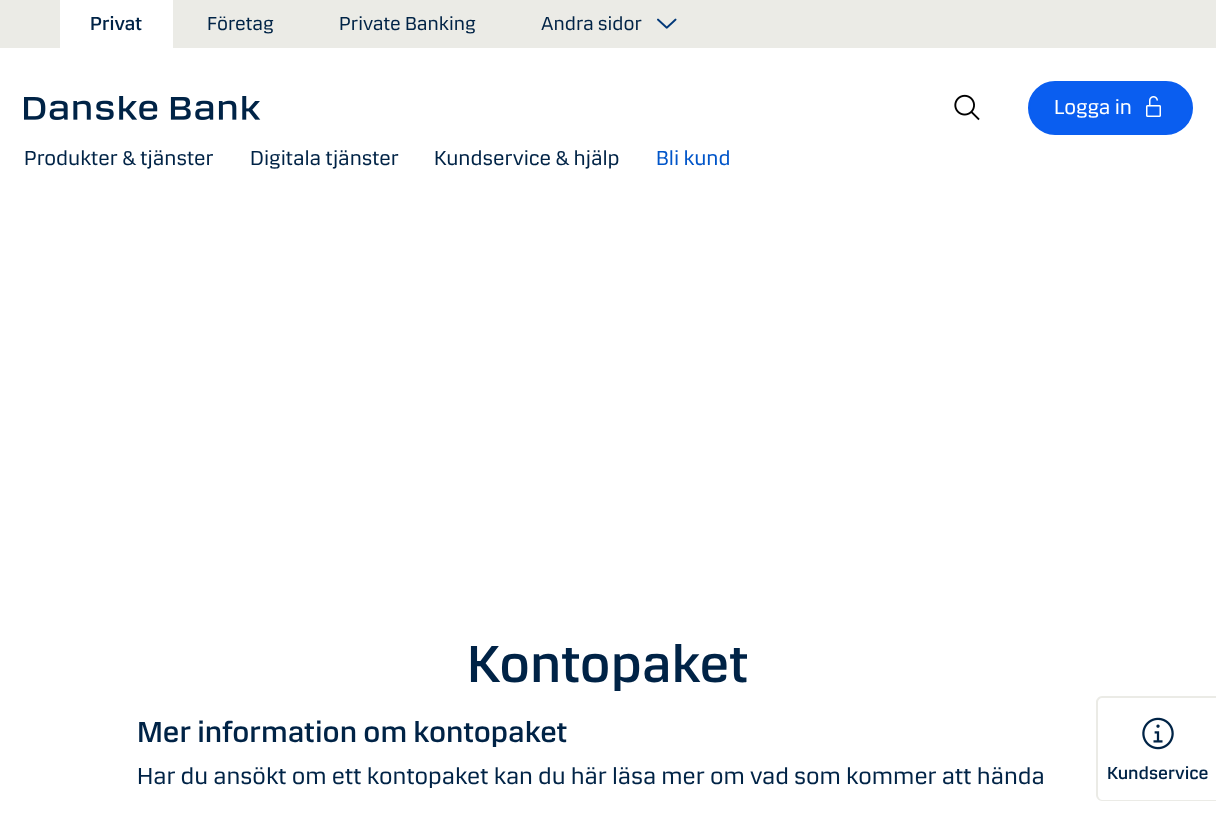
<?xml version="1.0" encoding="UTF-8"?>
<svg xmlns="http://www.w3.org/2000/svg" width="1216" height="815">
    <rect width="100%" height="100%" fill="#FFFFFF"/>
    <rect x="0" y="0" width="1216" height="48" fill="#EBEBE6"/>
    <rect x="60" y="0" width="113" height="48" fill="#FFFFFF"/>
    <text x="90" y="30" font-family="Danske" font-size="19.5" font-weight="500" fill="#002346">Privat</text>
    <text x="207" y="30" font-family="Danske" font-size="19.5" fill="#002346">Företag</text>
    <text x="339" y="30" font-family="Danske" font-size="19.5" fill="#002346">Private Banking</text>
    <text x="541" y="30" font-family="Danske" font-size="19.5" fill="#002346">Andra sidor</text>
    <image x="657" y="18" width="20" height="11" href="img_01.png"/>
    <image x="954" y="94" width="26" height="27" href="img_02.png"/>
    <rect x="1029" y="82" width="163" height="52" rx="26" fill="#0A5EF0" stroke="#0A5EF0" stroke-width="2"/>
    <text x="1054" y="114" font-family="Danske" font-size="21" fill="#FFFFFF">Logga in</text>
    <image x="1146" y="96" width="15" height="21" href="img_03.png"/>
    <image x="24" y="96" width="237" height="24" href="img_04.png"/>
    <text x="24" y="165" font-family="Danske" font-size="21" fill="#002346">Produkter &amp; tjänster</text>
    <text x="250" y="165" font-family="Danske" font-size="21" fill="#002346">Digitala tjänster</text>
    <text x="434" y="165" font-family="Danske" font-size="21" fill="#002346">Kundservice &amp; hjälp</text>
    <text x="656" y="165" font-family="Danske" font-size="21" fill="#0055C9">Bli kund</text>
    <text x="467" y="682" font-family="Danske" font-size="54" font-weight="500" fill="#002346">Kontopaket</text>
    <text x="137" y="742" font-family="Danske" font-size="30" font-weight="500" fill="#002346">Mer information om kontopaket</text>
    <text x="137" y="784" font-family="Danske" font-size="24" fill="#002346">Har du ansökt om ett kontopaket kan du här läsa mer om vad som kommer att hända</text>
    <path d="M 1102 696 H 1216 V 801 H 1102 C 1099 801 1096 798 1096 795 V 702 C 1096 699 1099 696 1102 696 Z M 1102 698 H 1216 V 800 H 1102 C 1100 800 1098 797 1098 795 V 702 C 1098 700 1100 698 1102 698 Z" fill="#EBEBE6" fill-rule="evenodd"/>
    <image x="1142" y="717" width="32" height="33" href="img_05.png"/>
    <text x="1107" y="779" font-family="Danske" font-size="18" font-weight="500" fill="#002346">Kundservice</text>
</svg>
